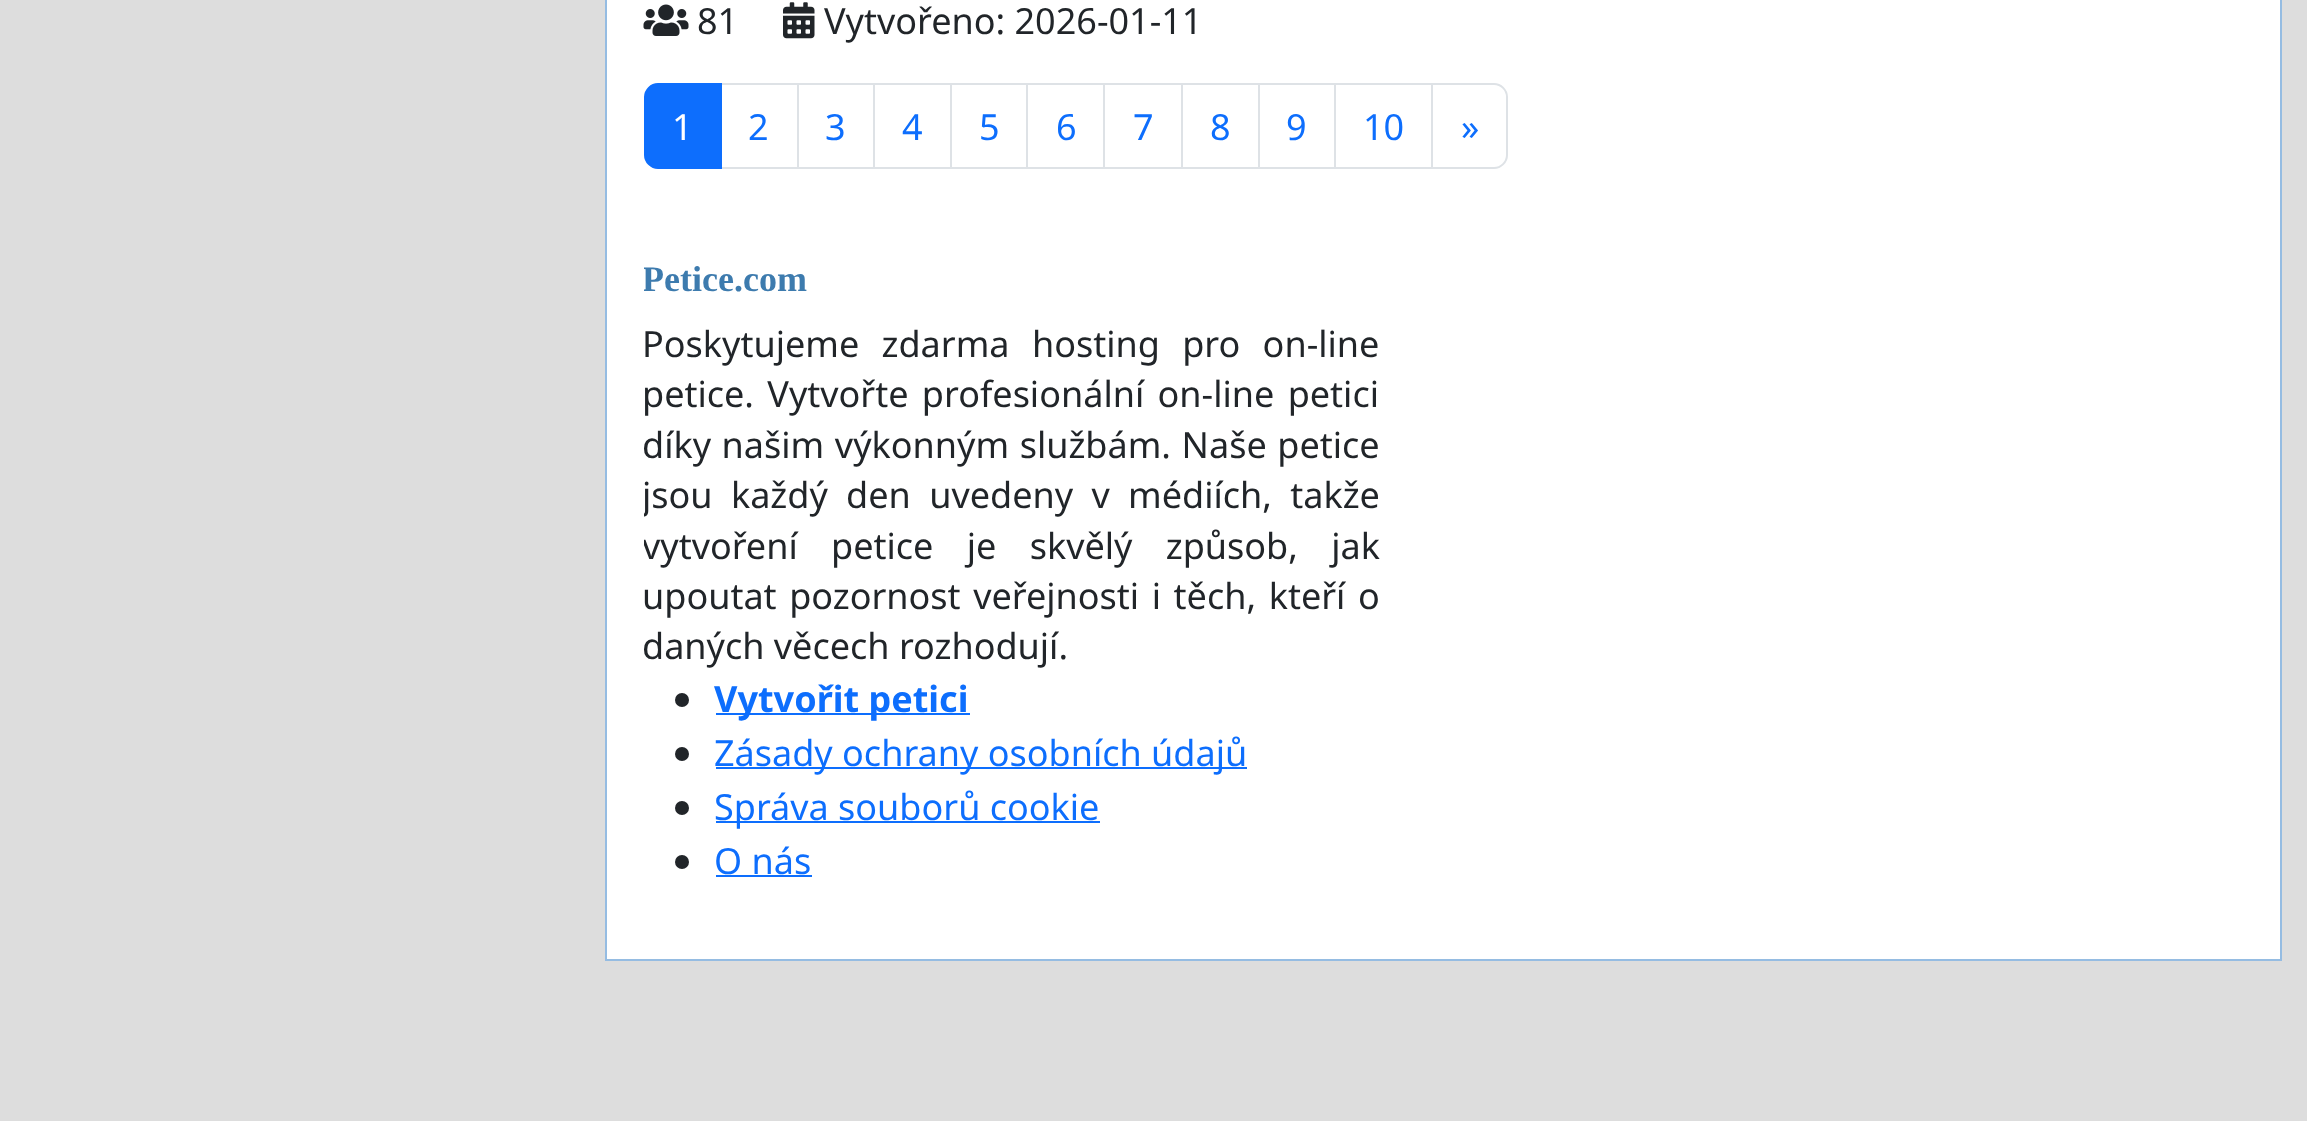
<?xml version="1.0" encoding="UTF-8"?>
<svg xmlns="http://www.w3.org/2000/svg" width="2307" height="1121">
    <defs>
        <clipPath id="clip1"><rect x="644" y="241" width="771" height="61"/></clipPath>
        <clipPath id="clip2"><rect x="644" y="205" width="1599" height="718"/></clipPath>
    </defs>
    <rect width="100%" height="100%" fill="#DDDDDD"/>
    <rect x="606" y="-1" width="1675" height="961" fill="#FFFFFF" stroke="#95BCE2" stroke-width="2"/>
    <image x="643" y="4" width="46" height="32" href="img_01.png"/>
    <text x="697" y="34" font-family="Noto Sans" font-size="36" fill="#212529">81</text>
    <image x="783" y="2" width="32" height="37" href="img_02.png"/>
    <text x="824" y="34" font-family="Noto Sans" font-size="36" fill="#212529">Vytvořeno: 2026-01-11</text>
    <rect x="721" y="84" width="77" height="84" fill="none" stroke="#DEE2E6" stroke-width="2"/>
    <path d="M 658 84 H 721 V 168 H 658 C 651 168 645 162 645 155 V 97 C 645 90 651 84 658 84 Z" fill="#0D6EFD" stroke="#0D6EFD" stroke-width="2"/>
    <text x="672" y="140" font-family="Noto Sans" font-size="36" fill="#FFFFFF">1</text>
    <text x="748" y="140" font-family="Noto Sans" font-size="36" fill="#0D6EFD">2</text>
    <rect x="798" y="84" width="76" height="84" fill="none" stroke="#DEE2E6" stroke-width="2"/>
    <text x="825" y="140" font-family="Noto Sans" font-size="36" fill="#0D6EFD">3</text>
    <rect x="874" y="84" width="77" height="84" fill="none" stroke="#DEE2E6" stroke-width="2"/>
    <text x="902" y="140" font-family="Noto Sans" font-size="36" fill="#0D6EFD">4</text>
    <rect x="951" y="84" width="76" height="84" fill="none" stroke="#DEE2E6" stroke-width="2"/>
    <text x="979" y="140" font-family="Noto Sans" font-size="36" fill="#0D6EFD">5</text>
    <rect x="1027" y="84" width="77" height="84" fill="none" stroke="#DEE2E6" stroke-width="2"/>
    <text x="1056" y="140" font-family="Noto Sans" font-size="36" fill="#0D6EFD">6</text>
    <rect x="1104" y="84" width="79" height="84" fill="none" stroke="#DEE2E6" stroke-width="2"/>
    <text x="1133" y="140" font-family="Noto Sans" font-size="36" fill="#0D6EFD">7</text>
    <rect x="1183" y="85" width="1" height="82" fill="#FFFFFF"/>
    <rect x="1182" y="84" width="77" height="84" fill="none" stroke="#DEE2E6" stroke-width="2"/>
    <text x="1210" y="140" font-family="Noto Sans" font-size="36" fill="#0D6EFD">8</text>
    <rect x="1259" y="84" width="77" height="84" fill="none" stroke="#DEE2E6" stroke-width="2"/>
    <text x="1286" y="140" font-family="Noto Sans" font-size="36" fill="#0D6EFD">9</text>
    <rect x="1336" y="85" width="1" height="82" fill="#FFFFFF"/>
    <rect x="1335" y="84" width="97" height="84" fill="none" stroke="#DEE2E6" stroke-width="2"/>
    <text x="1363" y="140" font-family="Noto Sans" font-size="36" fill="#0D6EFD">10</text>
    <path d="M 1432 84 H 1494 C 1501 84 1507 90 1507 97 V 155 C 1507 162 1501 168 1494 168 H 1432 Z" fill="#FFFFFF" stroke="#DEE2E6" stroke-width="2"/>
    <text x="1461" y="140" font-family="Noto Sans" font-size="36" fill="#0D6EFD">»</text>
    <g clip-path="url(#clip1)">
        <text x="642" y="291" font-family="Liberation Serif" font-size="36" font-weight="700" fill="#3D7BAE">Petice.com</text>
    </g>
    <text font-family="Noto Sans" font-size="36" fill="#212529">
        <tspan x="642" y="357" word-spacing="13">Poskytujeme zdarma hosting pro on-line</tspan>
        <tspan x="642" y="407" word-spacing="4">petice. Vytvořte profesionální on-line petici</tspan>
        <tspan x="642" y="458" word-spacing="1.25">díky našim výkonným službám. Naše petice</tspan>
    </text>
    <g clip-path="url(#clip2)">
        <text font-family="Noto Sans" font-size="36" fill="#212529">
            <tspan x="642" y="508" word-spacing="9">jsou každý den uvedeny v médiích, takže</tspan>
            <tspan x="642" y="559" word-spacing="24">vytvoření petice je skvělý způsob, jak</tspan>
        </text>
    </g>
    <text font-family="Noto Sans" font-size="36" fill="#212529">
        <tspan x="642" y="609" word-spacing="3.25">upoutat pozornost veřejnosti i těch, kteří o</tspan>
        <tspan x="642" y="659">daných věcech rozhodují.</tspan>
    </text>
    <circle cx="682" cy="700" r="7" fill="#212529"/>
    <rect x="716" y="713" width="254" height="2" fill="#0D6EFD"/>
    <text x="714" y="712" font-family="Noto Sans" font-size="36" font-weight="700" fill="#0D6EFD">Vytvořit petici</text>
    <circle cx="682" cy="754" r="7" fill="#212529"/>
    <rect x="716" y="767" width="531" height="2" fill="#0D6EFD"/>
    <text x="714" y="766" font-family="Noto Sans" font-size="36" fill="#0D6EFD">Zásady ochrany osobních údajů</text>
    <circle cx="682" cy="808" r="7" fill="#212529"/>
    <rect x="716" y="821" width="384" height="2" fill="#0D6EFD"/>
    <text x="714" y="820" font-family="Noto Sans" font-size="36" fill="#0D6EFD">Správa souborů cookie</text>
    <circle cx="682" cy="862" r="7" fill="#212529"/>
    <text x="714" y="874" font-family="Noto Sans" font-size="36" fill="#0D6EFD">O nás</text>
    <rect x="716" y="875" width="96" height="2" fill="#0D6EFD"/>
</svg>
